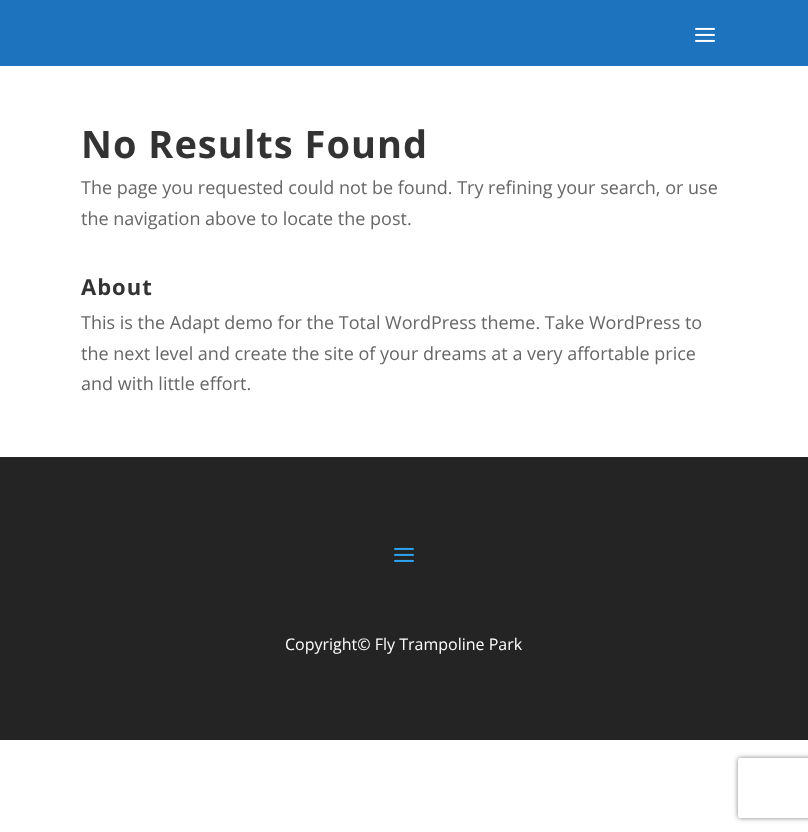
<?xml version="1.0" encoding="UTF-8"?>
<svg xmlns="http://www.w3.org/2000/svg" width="808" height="832">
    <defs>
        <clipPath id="clip1"><path d="M 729 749 H 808 V 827 H 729 Z M 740 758 H 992 C 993 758 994 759 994 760 V 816 C 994 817 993 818 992 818 H 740 C 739 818 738 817 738 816 V 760 C 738 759 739 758 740 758 Z" clip-rule="evenodd"/></clipPath>
        <filter id="blur1" x="-50%" y="-200%" width="200%" height="500%"><feGaussianBlur stdDeviation="2.5"/></filter>
    </defs>
    <rect width="100%" height="100%" fill="#FFFFFF"/>
    <rect x="0" y="0" width="808" height="66" fill="#1E73BE"/>
    <image x="695" y="27" width="20" height="15" href="img_01.png"/>
    <text x="81" y="158" font-family="Open Sans" font-size="38" font-weight="700" letter-spacing="1" fill="#333333">No Results Found</text>
    <text font-family="Open Sans" font-size="18" fill="#666666">
        <tspan x="81" y="194">The page you requested could not be found. Try refining your search, or use</tspan>
        <tspan x="81" y="225">the navigation above to locate the post.</tspan>
    </text>
    <text x="81" y="295" font-family="Open Sans" font-size="22" font-weight="700" letter-spacing="1" fill="#333333">About</text>
    <text font-family="Open Sans" font-size="18" fill="#666666">
        <tspan x="81" y="329">This is the Adapt demo for the Total WordPress theme. Take WordPress to</tspan>
        <tspan x="81" y="360">the next level and create the site of your dreams at a very affortable price</tspan>
        <tspan x="81" y="390">and with little effort.</tspan>
    </text>
    <rect x="0" y="457" width="808" height="283" fill="#242424"/>
    <image x="394" y="547" width="20" height="15" href="img_02.png"/>
    <text x="285" y="650" font-family="Open Sans" font-size="16" fill="#FFFFFF">Copyright© Fly Trampoline Park</text>
    <g clip-path="url(#clip1)">
        <rect x="738" y="758" width="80" height="60" rx="2" fill="#808080" filter="url(#blur1)"/>
    </g>
</svg>
